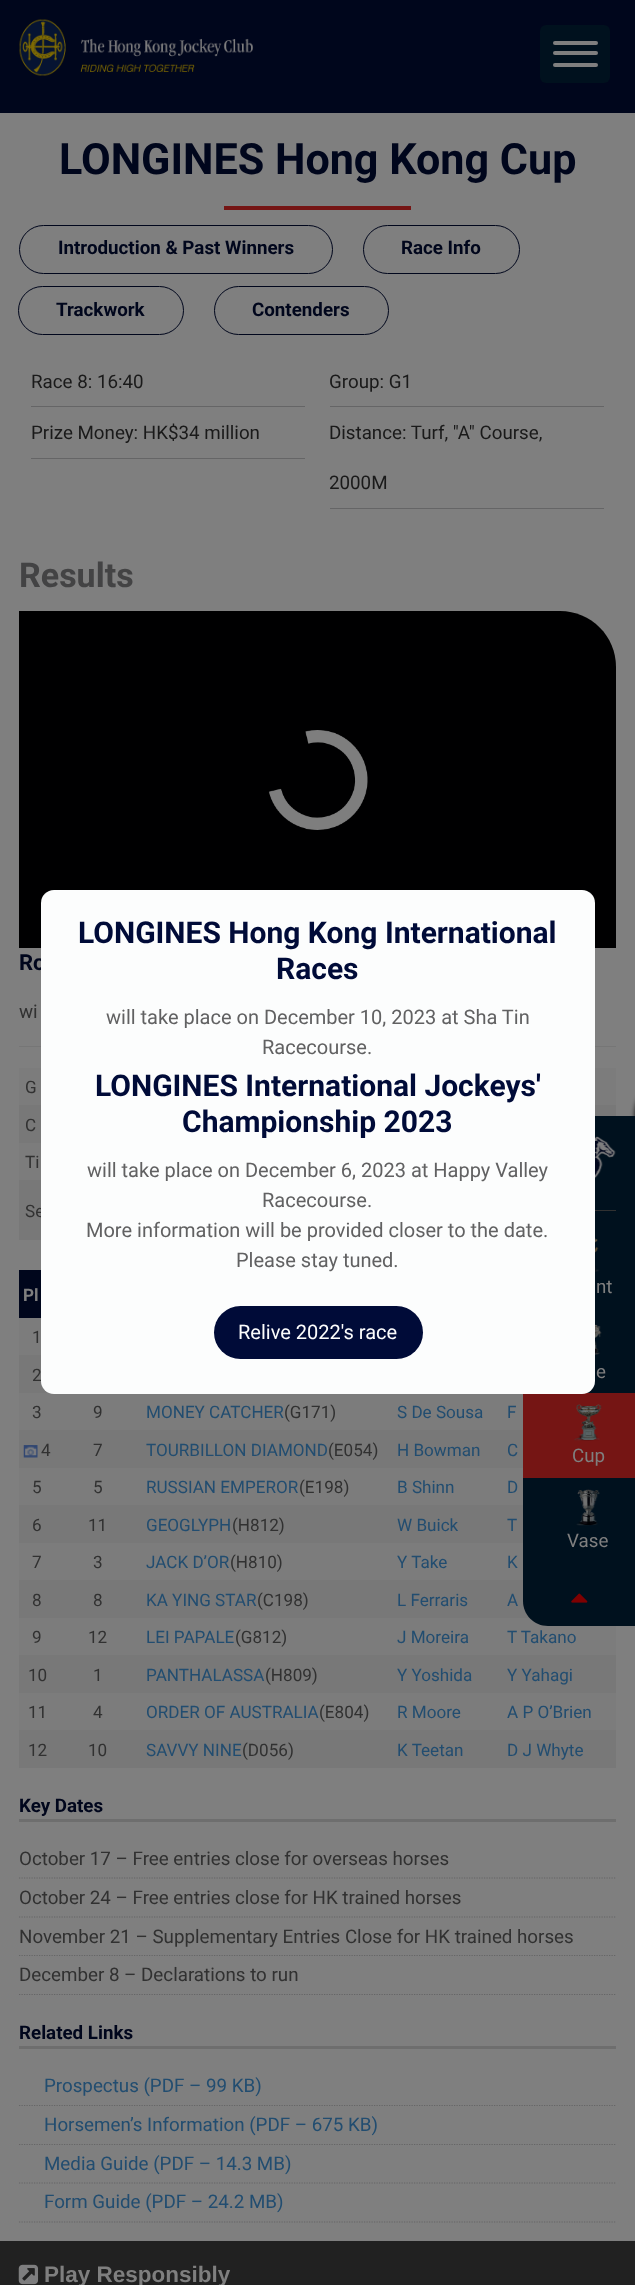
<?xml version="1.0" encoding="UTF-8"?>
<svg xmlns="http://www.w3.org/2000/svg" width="635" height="2285">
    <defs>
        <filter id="blur1" x="-50%" y="-200%" width="200%" height="500%"><feGaussianBlur stdDeviation="2.5"/></filter>
    </defs>
    <rect width="100%" height="100%" fill="#7F7F7F"/>
    <rect x="0" y="0" width="635" height="113" fill="#00061C"/>
    <image x="19" y="19" width="235" height="57" href="img_01.png"/>
    <rect x="540" y="25" width="70" height="58" rx="6" fill="#00111E"/>
    <rect x="553" y="41" width="45" height="4" rx="2" fill="#7F7F7F"/>
    <rect x="553" y="51" width="45" height="4" rx="2" fill="#7F7F7F"/>
    <rect x="553" y="63" width="45" height="4" rx="2" fill="#7F7F7F"/>
    <text x="59" y="174" font-family="Roboto" font-size="43.1" font-weight="700" fill="#00061C">LONGINES Hong Kong Cup</text>
    <rect x="224" y="206" width="187" height="4" fill="#751514"/>
    <rect x="19.5" y="225.5" width="313" height="48" rx="24" fill="none" stroke="#00061C"/>
    <text x="58" y="254" font-family="Roboto" font-size="18.75" font-weight="700" fill="#00061C">Introduction &amp; Past Winners</text>
    <rect x="363.5" y="225.5" width="156" height="48" rx="24" fill="none" stroke="#00061C"/>
    <text x="401" y="254" font-family="Roboto" font-size="18.75" font-weight="700" fill="#00061C">Race Info</text>
    <rect x="18.5" y="286.5" width="165" height="48" rx="24" fill="none" stroke="#00061C"/>
    <text x="56" y="316" font-family="Roboto" font-size="18.75" font-weight="700" fill="#00061C">Trackwork</text>
    <rect x="214.5" y="286.5" width="174" height="48" rx="24" fill="none" stroke="#00061C"/>
    <text x="252" y="316" font-family="Roboto" font-size="18.75" font-weight="700" fill="#00061C">Contenders</text>
    <rect x="31" y="406" width="274" height="1" fill="#656566"/>
    <text x="31" y="388" font-family="Roboto" font-size="18.75" fill="#1A1A1A">Race 8: 16:40</text>
    <rect x="330" y="406" width="274" height="1" fill="#656566"/>
    <text x="329" y="388" font-family="Roboto" font-size="18.75" fill="#1A1A1A">Group: G1</text>
    <rect x="31" y="458" width="274" height="1" fill="#656566"/>
    <text x="31" y="439" font-family="Roboto" font-size="18.75" fill="#1A1A1A">Prize Money: HK$34 million</text>
    <rect x="330" y="508" width="274" height="1" fill="#656566"/>
    <text x="329" y="439" font-family="Roboto" font-size="18.75" fill="#1A1A1A">Distance: Turf, "A" Course,</text>
    <text x="329" y="489" font-family="Roboto" font-size="18.75" fill="#1A1A1A">2000M</text>
    <text x="19" y="587" font-family="Roboto" font-size="34" font-weight="700" fill="#434344">Results</text>
    <path d="M 19 611 H 560 C 591 611 616 636 616 667 V 948 H 19 Z" fill="#000001"/>
    <image x="268" y="730" width="100" height="100" href="img_02.png"/>
    <text x="19" y="970" font-family="Roboto" font-size="22" font-weight="700" fill="#00061C">Ro</text>
    <text x="19" y="1018" font-family="Roboto" font-size="18.75" fill="#313131">wi</text>
    <rect x="19" y="1046" width="597" height="1" fill="#767676"/>
    <rect x="19" y="1068" width="597" height="37" fill="#7C7C7C"/>
    <text x="25" y="1093" font-family="Roboto" font-size="17.1" fill="#313131">G</text>
    <rect x="19" y="1105" width="597" height="38" fill="#787878"/>
    <text x="25" y="1131" font-family="Roboto" font-size="17.1" fill="#313131">C</text>
    <rect x="19" y="1143" width="22" height="37" fill="#7C7C7C"/>
    <text x="25" y="1168" font-family="Roboto" font-size="17.1" fill="#313131">Ti</text>
    <rect x="19" y="1180" width="22" height="60" fill="#787878"/>
    <text x="25" y="1217" font-family="Roboto" font-size="17.1" fill="#313131">Se</text>
    <rect x="19" y="1270" width="22" height="48" fill="#00061C"/>
    <text x="23" y="1301" font-family="Roboto" font-size="17.1" font-weight="700" fill="#7F7F7F">Pl</text>
    <rect x="19" y="1318" width="22" height="37" fill="#7C7C7C"/>
    <text x="32" y="1343" font-family="Roboto" font-size="17.1" fill="#313131">1</text>
    <rect x="19" y="1355" width="30" height="38" fill="#787878"/>
    <text x="32" y="1381" font-family="Roboto" font-size="17.1" fill="#313131">2</text>
    <rect x="19" y="1393" width="504" height="37" fill="#7C7C7C"/>
    <text x="32" y="1418" font-family="Roboto" font-size="17.1" fill="#313131">3</text>
    <text x="93" y="1418" font-family="Roboto" font-size="17.1" fill="#313131">9</text>
    <text x="146" y="1418" font-family="Roboto" font-size="17.1" fill="#224D70">MONEY CATCHER</text>
    <text x="284" y="1418" font-family="Roboto" font-size="17.1" fill="#313131">(G171)</text>
    <text x="397" y="1418" font-family="Roboto" font-size="17.1" fill="#224D70">S De Sousa</text>
    <text x="507" y="1418" font-family="Roboto" font-size="17.1" fill="#224D70">F</text>
    <rect x="19" y="1430" width="504" height="38" fill="#787878"/>
    <image x="23" y="1445" width="15" height="13" href="img_03.png"/>
    <text x="41" y="1456" font-family="Roboto" font-size="17.1" fill="#313131">4</text>
    <text x="93" y="1456" font-family="Roboto" font-size="17.1" fill="#313131">7</text>
    <text x="146" y="1456" font-family="Roboto" font-size="17.1" fill="#224D70">TOURBILLON DIAMOND</text>
    <text x="328" y="1456" font-family="Roboto" font-size="17.1" fill="#313131">(E054)</text>
    <text x="397" y="1456" font-family="Roboto" font-size="17.1" fill="#224D70">H Bowman</text>
    <text x="507" y="1456" font-family="Roboto" font-size="17.1" fill="#224D70">C</text>
    <rect x="19" y="1468" width="504" height="37" fill="#7C7C7C"/>
    <text x="32" y="1493" font-family="Roboto" font-size="17.1" fill="#313131">5</text>
    <text x="93" y="1493" font-family="Roboto" font-size="17.1" fill="#313131">5</text>
    <text x="146" y="1493" font-family="Roboto" font-size="17.1" fill="#224D70">RUSSIAN EMPEROR</text>
    <text x="299" y="1493" font-family="Roboto" font-size="17.1" fill="#313131">(E198)</text>
    <text x="397" y="1493" font-family="Roboto" font-size="17.1" fill="#224D70">B Shinn</text>
    <text x="507" y="1493" font-family="Roboto" font-size="17.1" fill="#224D70">D</text>
    <rect x="19" y="1505" width="504" height="38" fill="#787878"/>
    <text x="32" y="1531" font-family="Roboto" font-size="17.1" fill="#313131">6</text>
    <text x="88" y="1531" font-family="Roboto" font-size="17.1" fill="#313131">11</text>
    <text x="146" y="1531" font-family="Roboto" font-size="17.1" fill="#224D70">GEOGLYPH</text>
    <text x="232" y="1531" font-family="Roboto" font-size="17.1" fill="#313131">(H812)</text>
    <text x="397" y="1531" font-family="Roboto" font-size="17.1" fill="#224D70">W Buick</text>
    <text x="507" y="1531" font-family="Roboto" font-size="17.1" fill="#224D70">T</text>
    <rect x="19" y="1543" width="504" height="37" fill="#7C7C7C"/>
    <text x="32" y="1568" font-family="Roboto" font-size="17.1" fill="#313131">7</text>
    <text x="93" y="1568" font-family="Roboto" font-size="17.1" fill="#313131">3</text>
    <text x="146" y="1568" font-family="Roboto" font-size="17.1" fill="#224D70">JACK D’OR</text>
    <text x="230" y="1568" font-family="Roboto" font-size="17.1" fill="#313131">(H810)</text>
    <text x="397" y="1568" font-family="Roboto" font-size="17.1" fill="#224D70">Y Take</text>
    <text x="507" y="1568" font-family="Roboto" font-size="17.1" fill="#224D70">K</text>
    <rect x="19" y="1580" width="511" height="38" fill="#787878"/>
    <text x="32" y="1606" font-family="Roboto" font-size="17.1" fill="#313131">8</text>
    <text x="93" y="1606" font-family="Roboto" font-size="17.1" fill="#313131">8</text>
    <text x="146" y="1606" font-family="Roboto" font-size="17.1" fill="#224D70">KA YING STAR</text>
    <text x="257" y="1606" font-family="Roboto" font-size="17.1" fill="#313131">(C198)</text>
    <text x="397" y="1606" font-family="Roboto" font-size="17.1" fill="#224D70">L Ferraris</text>
    <text x="507" y="1606" font-family="Roboto" font-size="17.1" fill="#224D70">A</text>
    <rect x="19" y="1618" width="597" height="37" fill="#7C7C7C"/>
    <text x="32" y="1643" font-family="Roboto" font-size="17.1" fill="#313131">9</text>
    <text x="88" y="1643" font-family="Roboto" font-size="17.1" fill="#313131">12</text>
    <text x="146" y="1643" font-family="Roboto" font-size="17.1" fill="#224D70">LEI PAPALE</text>
    <text x="235" y="1643" font-family="Roboto" font-size="17.1" fill="#313131">(G812)</text>
    <text x="397" y="1643" font-family="Roboto" font-size="17.1" fill="#224D70">J Moreira</text>
    <text x="507" y="1643" font-family="Roboto" font-size="17.1" fill="#224D70">T Takano</text>
    <rect x="19" y="1655" width="597" height="38" fill="#787878"/>
    <text x="28" y="1681" font-family="Roboto" font-size="17.1" fill="#313131">10</text>
    <text x="93" y="1681" font-family="Roboto" font-size="17.1" fill="#313131">1</text>
    <text x="146" y="1681" font-family="Roboto" font-size="17.1" fill="#224D70">PANTHALASSA</text>
    <text x="265" y="1681" font-family="Roboto" font-size="17.1" fill="#313131">(H809)</text>
    <text x="397" y="1681" font-family="Roboto" font-size="17.1" fill="#224D70">Y Yoshida</text>
    <text x="507" y="1681" font-family="Roboto" font-size="17.1" fill="#224D70">Y Yahagi</text>
    <rect x="19" y="1693" width="597" height="37" fill="#7C7C7C"/>
    <text x="28" y="1718" font-family="Roboto" font-size="17.1" fill="#313131">11</text>
    <text x="93" y="1718" font-family="Roboto" font-size="17.1" fill="#313131">4</text>
    <text x="146" y="1718" font-family="Roboto" font-size="17.1" fill="#224D70">ORDER OF AUSTRALIA</text>
    <text x="319" y="1718" font-family="Roboto" font-size="17.1" fill="#313131">(E804)</text>
    <text x="397" y="1718" font-family="Roboto" font-size="17.1" fill="#224D70">R Moore</text>
    <text x="507" y="1718" font-family="Roboto" font-size="17.1" fill="#224D70">A P O’Brien</text>
    <rect x="19" y="1730" width="597" height="38" fill="#787878"/>
    <text x="28" y="1756" font-family="Roboto" font-size="17.1" fill="#313131">12</text>
    <text x="88" y="1756" font-family="Roboto" font-size="17.1" fill="#313131">10</text>
    <text x="146" y="1756" font-family="Roboto" font-size="17.1" fill="#224D70">SAVVY NINE</text>
    <text x="242" y="1756" font-family="Roboto" font-size="17.1" fill="#313131">(D056)</text>
    <text x="397" y="1756" font-family="Roboto" font-size="17.1" fill="#224D70">K Teetan</text>
    <text x="507" y="1756" font-family="Roboto" font-size="17.1" fill="#224D70">D J Whyte</text>
    <rect x="19" y="1819" width="597" height="3" fill="#6E6E6E"/>
    <text x="19" y="1812" font-family="Roboto" font-size="18.75" font-weight="700" fill="#00061C">Key Dates</text>
    <path d="M 19 1878 H 616" fill="none" stroke="#656566" stroke-width="1.2" stroke-dasharray="1.25 1.25"/>
    <text x="19" y="1865" font-family="Roboto" font-size="18.75" fill="#313131">October 17 – Free entries close for overseas horses</text>
    <path d="M 19 1917 H 616" fill="none" stroke="#656566" stroke-width="1.2" stroke-dasharray="1.25 1.25"/>
    <text x="19" y="1904" font-family="Roboto" font-size="18.75" fill="#313131">October 24 – Free entries close for HK trained horses</text>
    <path d="M 19 1955.5 H 616" fill="none" stroke="#656566" stroke-width="1.2" stroke-dasharray="1.25 1.25"/>
    <text x="19" y="1943" font-family="Roboto" font-size="18.75" fill="#313131">November 21 – Supplementary Entries Close for HK trained horses</text>
    <path d="M 19 1994.5 H 616" fill="none" stroke="#656566" stroke-width="1.2" stroke-dasharray="1.25 1.25"/>
    <text x="19" y="1981" font-family="Roboto" font-size="18.75" fill="#313131">December 8 – Declarations to run</text>
    <rect x="19" y="2046" width="597" height="3" fill="#6E6E6E"/>
    <text x="19" y="2039" font-family="Roboto" font-size="18.75" font-weight="700" fill="#00061C">Related Links</text>
    <path d="M 19 2105.5 H 616" fill="none" stroke="#656566" stroke-width="1.2" stroke-dasharray="1.25 1.25"/>
    <text x="44" y="2092" font-family="Roboto" font-size="18.75" fill="#224D70">Prospectus (PDF – 99 KB)</text>
    <path d="M 19 2144.5 H 616" fill="none" stroke="#656566" stroke-width="1.2" stroke-dasharray="1.25 1.25"/>
    <text x="44" y="2131" font-family="Roboto" font-size="18.75" fill="#224D70">Horsemen’s Information (PDF – 675 KB)</text>
    <path d="M 19 2183 H 616" fill="none" stroke="#656566" stroke-width="1.2" stroke-dasharray="1.25 1.25"/>
    <text x="44" y="2170" font-family="Roboto" font-size="18.75" fill="#224D70">Media Guide (PDF – 14.3 MB)</text>
    <path d="M 19 2222 H 616" fill="none" stroke="#656566" stroke-width="1.2" stroke-dasharray="1.25 1.25"/>
    <text x="44" y="2208" font-family="Roboto" font-size="18.75" fill="#224D70">Form Guide (PDF – 24.2 MB)</text>
    <rect x="0" y="2241" width="635" height="44" fill="#212121"/>
    <image x="18" y="2264" width="21" height="21" href="img_04.png"/>
    <text x="44" y="2282" font-family="Liberation Sans" font-size="22.5" font-weight="700" fill="#7F7F7F">Play Responsibly</text>
    <rect x="635" y="1090" width="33" height="110" rx="25" fill="#000001" fill-opacity="0.9" filter="url(#blur1)"/>
    <path d="M 548 1116 H 635 V 1626 H 548 C 534 1626 523 1615 523 1601 V 1141 C 523 1127 534 1116 548 1116 Z" fill="#00111E"/>
    <rect x="523" y="1393" width="112" height="85" fill="#751514"/>
    <rect x="41" y="890" width="554" height="504" rx="13" fill="#FCFDFD"/>
    <text x="78" y="943" font-family="Roboto" font-size="30" font-weight="700" fill="#000B38">LONGINES Hong Kong International</text>
    <text x="276" y="979" font-family="Roboto" font-size="30" font-weight="700" fill="#000B38">Races</text>
    <text x="106" y="1024" font-family="Roboto" font-size="20" fill="#616162">will take place on December 10, 2023 at Sha Tin</text>
    <text x="262" y="1054" font-family="Roboto" font-size="20" fill="#616162">Racecourse.</text>
    <text x="95" y="1096" font-family="Roboto" font-size="30" font-weight="700" fill="#000B38">LONGINES International Jockeys'</text>
    <text x="182" y="1132" font-family="Roboto" font-size="30" font-weight="700" fill="#000B38">Championship 2023</text>
    <text x="87" y="1177" font-family="Roboto" font-size="20" fill="#616162">will take place on December 6, 2023 at Happy Valley</text>
    <text x="262" y="1207" font-family="Roboto" font-size="20" fill="#616162">Racecourse.</text>
    <text x="86" y="1237" font-family="Roboto" font-size="20" fill="#616162">More information will be provided closer to the date.</text>
    <text x="236" y="1267" font-family="Roboto" font-size="20" fill="#616162">Please stay tuned.</text>
    <rect x="214" y="1306" width="209" height="53" rx="26.5" fill="#000B38"/>
    <text x="238" y="1339" font-family="Roboto" font-size="20" fill="#FCFDFD">Relive 2022's race</text>
    <rect x="595" y="1210" width="21" height="1" fill="#313131"/>
    <image x="595" y="1136" width="21" height="43" href="img_05.png"/>
    <image x="595" y="1238" width="5" height="34" href="img_06.png"/>
    <text x="596" y="1293" font-family="Roboto" font-size="18.75" fill="#7F7F7F">nt</text>
    <image x="595" y="1324" width="7" height="31" href="img_07.png"/>
    <text x="596" y="1378" font-family="Roboto" font-size="18.75" fill="#7F7F7F">e</text>
    <image x="574" y="1404" width="28" height="37" href="img_08.png"/>
    <text x="572" y="1462" font-family="Roboto" font-size="18.75" fill="#7F7F7F">Cup</text>
    <image x="576" y="1489" width="24" height="37" href="img_09.png"/>
    <text x="567" y="1547" font-family="Roboto" font-size="18.75" fill="#7F7F7F">Vase</text>
    <image x="571" y="1593" width="17" height="10" href="img_10.png"/>
</svg>
